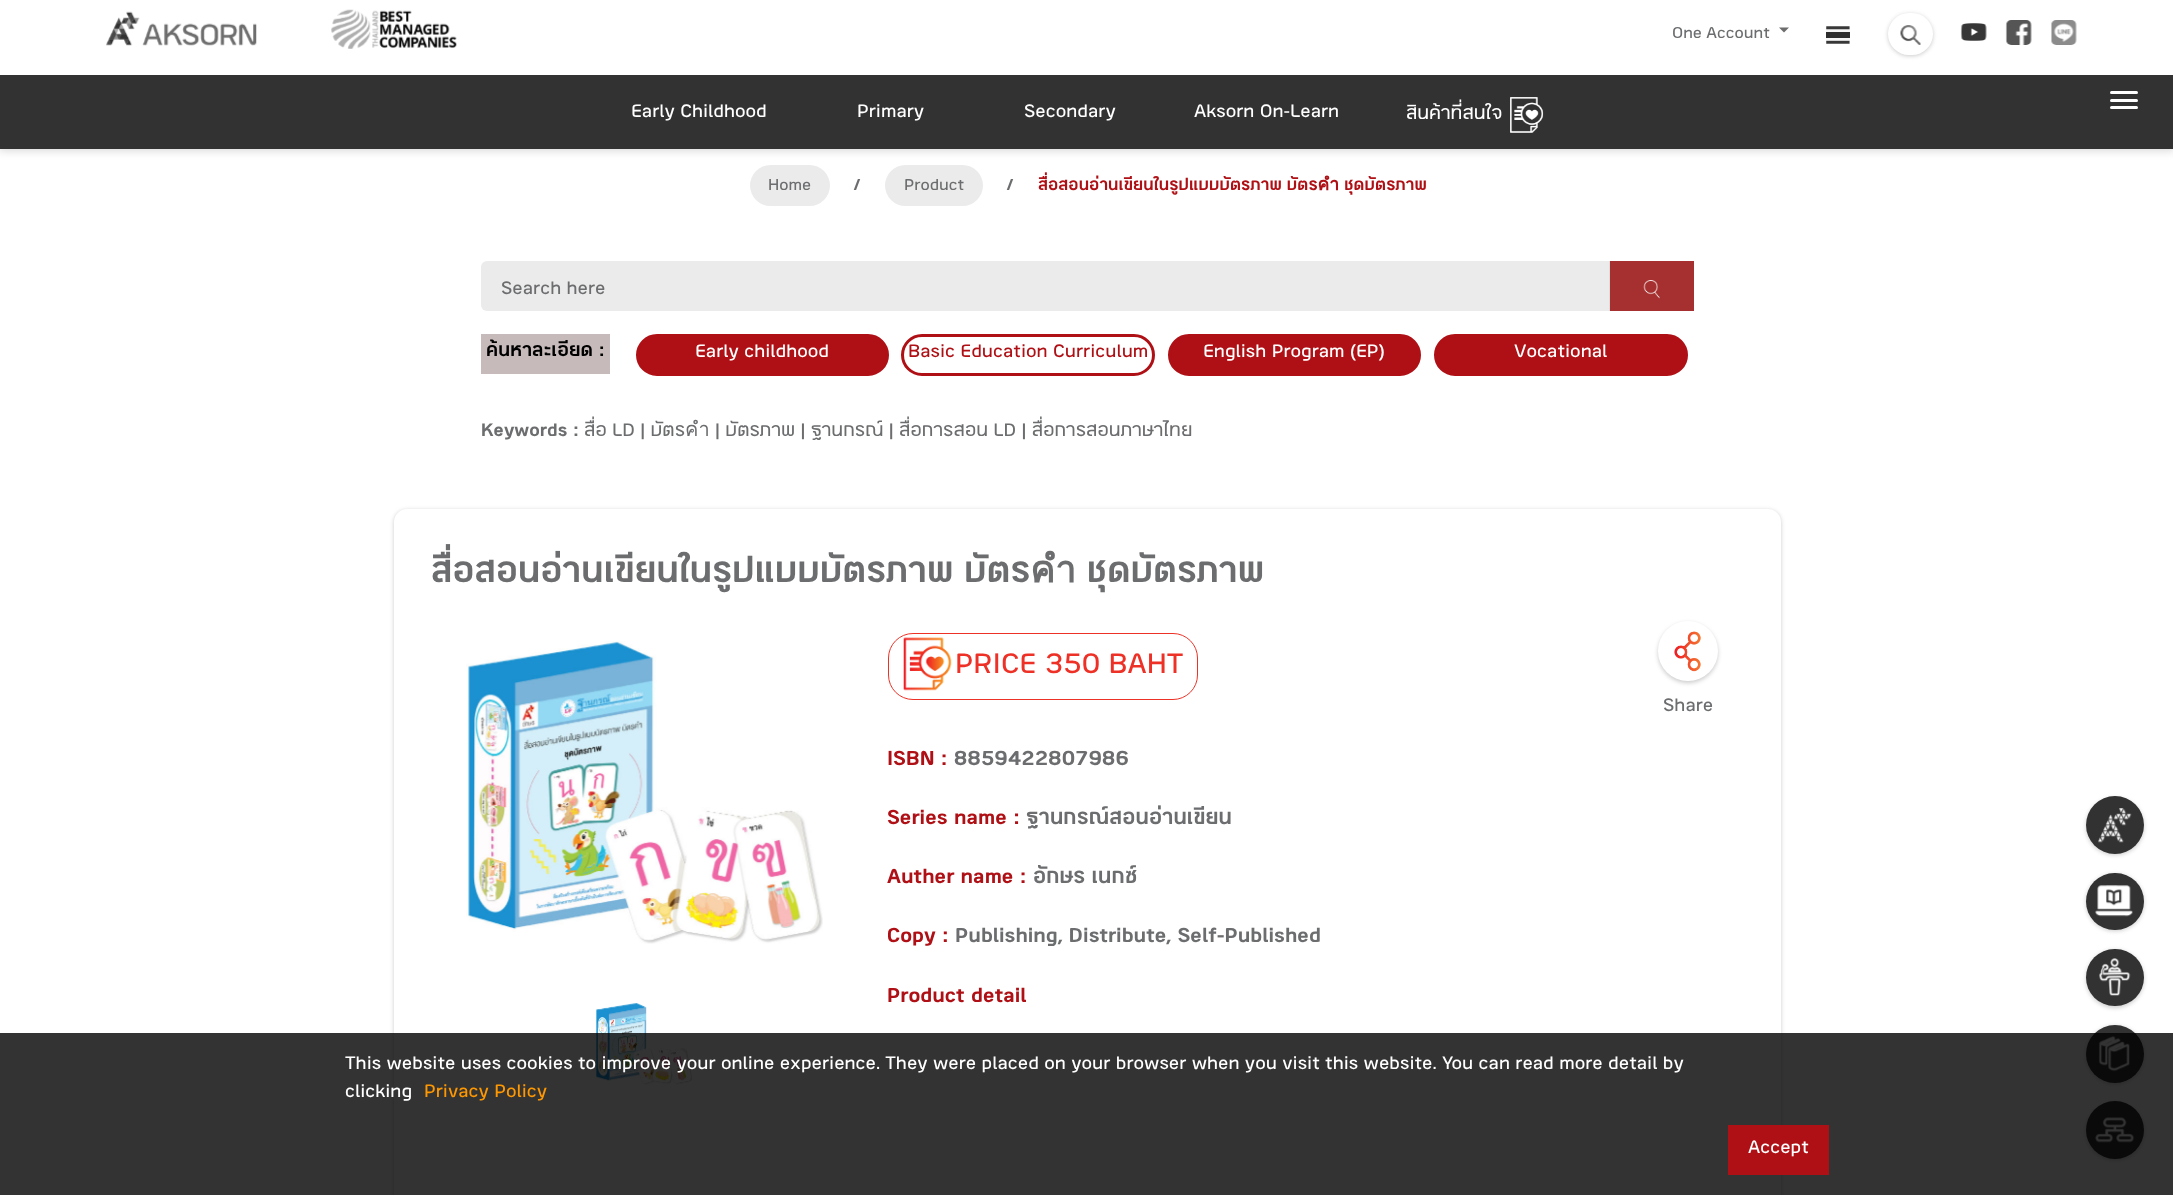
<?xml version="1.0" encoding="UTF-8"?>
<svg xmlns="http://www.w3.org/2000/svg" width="2173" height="1195">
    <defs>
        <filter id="blur1" x="-50%" y="-200%" width="200%" height="500%"><feGaussianBlur stdDeviation="4"/></filter>
        <filter id="blur2" x="-50%" y="-200%" width="200%" height="500%"><feGaussianBlur stdDeviation="2"/></filter>
        <clipPath id="clip1"><path d="M 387 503 H 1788 V 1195 H 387 Z M 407 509 H 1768 C 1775 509 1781 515 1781 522 V 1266 C 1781 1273 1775 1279 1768 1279 H 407 C 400 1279 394 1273 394 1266 V 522 C 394 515 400 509 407 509 Z" clip-rule="evenodd"/></clipPath>
        <clipPath id="clip2"><rect x="888" y="920" width="837" height="40"/></clipPath>
    </defs>
    <rect width="100%" height="100%" fill="#FFFFFF"/>
    <rect x="-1" y="0" width="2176" height="151" fill="#000000" fill-opacity="0.15" filter="url(#blur1)"/>
    <rect x="0" y="0" width="2173" height="75" fill="#FFFFFF"/>
    <image x="106" y="11" width="151" height="35" href="img_01.png"/>
    <image x="331" y="9" width="126" height="40" href="img_02.png"/>
    <text x="1672" y="38" font-family="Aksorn" font-size="17.5" fill="#6C6D6F">One Account</text>
    <path d="M 1779 27.5 H 1789 L 1784 32.5 Z" fill="#6D6D6D"/>
    <image x="1826" y="26" width="24" height="18" href="img_03.png"/>
    <rect x="1888" y="14" width="45" height="42" rx="21" fill="#000000" fill-opacity="0.2" filter="url(#blur2)"/>
    <rect x="1888" y="13" width="45" height="42" rx="21" fill="#FFFFFF"/>
    <image x="1900" y="25" width="21" height="20" href="img_04.png"/>
    <image x="1960" y="23" width="27" height="18" href="img_05.png"/>
    <image x="2005" y="20" width="27" height="25" href="img_06.png"/>
    <image x="2051" y="20" width="26" height="25" href="img_07.png"/>
    <rect x="0" y="75" width="2173" height="74" fill="#323232"/>
    <text x="631" y="117" font-family="Aksorn" font-size="20" fill="#FFFFFF">Early Childhood</text>
    <text x="857" y="117" font-family="Aksorn" font-size="20" fill="#FFFFFF">Primary</text>
    <text x="1024" y="117" font-family="Aksorn" font-size="20" fill="#FFFFFF">Secondary</text>
    <text x="1194" y="117" font-family="Aksorn" font-size="20" fill="#FFFFFF">Aksorn On-Learn</text>
    <text x="1406" y="119" font-family="Aksorn" font-size="20" fill="#FFFFFF">สินค้าที่สนใจ</text>
    <image x="1510" y="97" width="34" height="36" href="img_08.png"/>
    <rect x="2110" y="91" width="28" height="3" rx="1.5" fill="#FFFFFF"/>
    <rect x="2110" y="99" width="28" height="3" rx="1.5" fill="#FFFFFF"/>
    <rect x="2110" y="106" width="28" height="3" rx="1.5" fill="#FFFFFF"/>
    <rect x="750" y="165" width="80" height="41" rx="20.5" fill="#EBEBEB"/>
    <text x="768" y="190" font-family="Aksorn" font-size="17.5" fill="#6C6D6F">Home</text>
    <text x="854" y="190" font-family="Aksorn" font-size="17.5" font-weight="700" fill="#6C6D6F">/</text>
    <rect x="885" y="165" width="98" height="41" rx="20.5" fill="#EBEBEB"/>
    <text x="904" y="190" font-family="Aksorn" font-size="17.5" fill="#6C6D6F">Product</text>
    <text x="1007" y="190" font-family="Aksorn" font-size="17.5" font-weight="700" fill="#6C6D6F">/</text>
    <text x="1038" y="190" font-family="Aksorn" font-size="17.5" font-weight="700" fill="#AF1015">สื่อสอนอ่านเขียนในรูปแบบบัตรภาพ บัตรคำ ชุดบัตรภาพ</text>
    <rect x="481" y="261" width="1213" height="50" rx="6" fill="#EBEBEB"/>
    <text x="501" y="294" font-family="Aksorn" font-size="20" fill="#6C6D6F">Search here</text>
    <rect x="1610" y="261" width="84" height="50" fill="#A62F2F"/>
    <rect x="1609" y="261" width="1" height="50" fill="#DDDDDD"/>
    <image x="1643" y="280" width="17" height="19" href="img_09.png"/>
    <rect x="481" y="334" width="129" height="40" fill="#C7BABA"/>
    <text x="486" y="356" font-family="Aksorn" font-size="20" font-weight="700" fill="#000000">ค้นหาละเอียด :</text>
    <rect x="637.5" y="335.5" width="250" height="39" rx="19.5" fill="#AF1015" stroke="#AF1015" stroke-width="3"/>
    <text x="695" y="357" font-family="Aksorn" font-size="20" fill="#FFFFFF">Early childhood</text>
    <rect x="902.5" y="335.5" width="251" height="39" rx="19.5" fill="none" stroke="#AF1015" stroke-width="3"/>
    <text x="908" y="357" font-family="Aksorn" font-size="20" fill="#AF1015">Basic Education Curriculum</text>
    <rect x="1169.5" y="335.5" width="250" height="39" rx="19.5" fill="#AF1015" stroke="#AF1015" stroke-width="3"/>
    <text x="1203" y="357" font-family="Aksorn" font-size="20" fill="#FFFFFF">English Program (EP)</text>
    <rect x="1435.5" y="335.5" width="251" height="39" rx="19.5" fill="#AF1015" stroke="#AF1015" stroke-width="3"/>
    <text x="1514" y="357" font-family="Aksorn" font-size="20" fill="#FFFFFF">Vocational</text>
    <text x="481" y="436" font-family="Aksorn" font-size="20" font-weight="700" fill="#6C6D6F">Keywords :</text>
    <text x="584" y="436" font-family="Aksorn" font-size="20" fill="#6C6D6F">สื่อ LD | บัตรคำ | บัตรภาพ | ฐานกรณ์ | สื่อการสอน LD | สื่อการสอนภาษาไทย</text>
    <g clip-path="url(#clip1)">
        <rect x="394" y="510" width="1387" height="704" rx="13" fill="#000000" fill-opacity="0.2" filter="url(#blur2)"/>
    </g>
    <text x="431" y="582" font-family="Aksorn" font-size="37.5" font-weight="700" fill="#6C6D6F">สื่อสอนอ่านเขียนในรูปแบบบัตรภาพ บัตรคำ ชุดบัตรภาพ</text>
    <image x="466" y="641" width="357" height="303" href="img_10.png"/>
    <image x="596" y="1003" width="96" height="82" href="img_11.png"/>
    <rect x="888.5" y="633.5" width="309" height="66" rx="24.5" fill="none" stroke="#EE3126"/>
    <image x="903" y="637" width="49" height="54" href="img_12.png"/>
    <text x="955" y="673" font-family="Aksorn" font-size="31.25" fill="#EE3126">PRICE 350 BAHT</text>
    <rect x="1658" y="623" width="60" height="60" rx="30" fill="#000000" fill-opacity="0.2" filter="url(#blur2)"/>
    <circle cx="1688" cy="651" r="30" fill="#FFFFFF"/>
    <image x="1674" y="631" width="27" height="41" href="img_13.png"/>
    <text x="1663" y="711" font-family="Aksorn" font-size="20" fill="#6C6D6F">Share</text>
    <text x="887" y="765" font-family="Aksorn" font-size="22.5" font-weight="700" fill="#AF1015">ISBN :</text>
    <text x="954" y="765" font-family="Aksorn" font-size="22.5" font-weight="700" fill="#6C6D6F">8859422807986</text>
    <text x="887" y="824" font-family="Aksorn" font-size="22.5" font-weight="700" fill="#AF1015">Series name :</text>
    <text x="1026" y="824" font-family="Aksorn" font-size="22.5" font-weight="700" fill="#6C6D6F">ฐานกรณ์สอนอ่านเขียน</text>
    <text x="887" y="883" font-family="Aksorn" font-size="22.5" font-weight="700" fill="#AF1015">Auther name :</text>
    <text x="1033" y="883" font-family="Aksorn" font-size="22.5" font-weight="700" fill="#6C6D6F">อักษร เนกซ์</text>
    <g clip-path="url(#clip2)">
        <text x="887" y="942" font-family="Aksorn" font-size="22.5" font-weight="700" fill="#AF1015">Copy :</text>
    </g>
    <text x="955" y="942" font-family="Aksorn" font-size="22.5" font-weight="700" fill="#6C6D6F">Publishing, Distribute, Self-Published</text>
    <text x="887" y="1002" font-family="Aksorn" font-size="22.5" font-weight="700" fill="#AF1015">Product detail</text>
    <rect x="2086" y="798" width="58" height="57" rx="28.5" fill="#000000" fill-opacity="0.2" filter="url(#blur2)"/>
    <circle cx="2115" cy="825" r="29" fill="#323232"/>
    <image x="2098" y="808" width="34" height="35" href="img_14.png"/>
    <rect x="2086" y="874" width="58" height="57" rx="28.5" fill="#000000" fill-opacity="0.2" filter="url(#blur2)"/>
    <rect x="2086" y="873" width="58" height="57" rx="28.5" fill="#323232"/>
    <image x="2095" y="885" width="38" height="32" href="img_15.png"/>
    <rect x="2086" y="950" width="58" height="58" rx="29" fill="#000000" fill-opacity="0.2" filter="url(#blur2)"/>
    <rect x="2086" y="949" width="58" height="57" rx="28.5" fill="#323232"/>
    <image x="2099" y="958" width="32" height="38" href="img_16.png"/>
    <rect x="2086" y="1026" width="58" height="58" rx="29" fill="#000000" fill-opacity="0.2" filter="url(#blur2)"/>
    <circle cx="2115" cy="1054" r="29" fill="#323232"/>
    <image x="2098" y="1036" width="32" height="36" href="img_17.png"/>
    <rect x="2086" y="1103" width="58" height="57" rx="28.5" fill="#000000" fill-opacity="0.2" filter="url(#blur2)"/>
    <circle cx="2115" cy="1130" r="29" fill="#323232"/>
    <image x="2095" y="1117" width="40" height="26" href="img_18.png"/>
    <rect x="0" y="1033" width="2173" height="162" fill="#000000" fill-opacity="0.8"/>
    <text font-family="Aksorn" font-size="20" fill="#FFFFFF">
        <tspan x="345" y="1069">This website uses cookies to improve your online experience. They were placed on your browser when you visit this website. You can read more detail by</tspan>
        <tspan x="345" y="1097">clicking</tspan>
    </text>
    <text x="424" y="1097" font-family="Aksorn" font-size="20" fill="#FF9800">Privacy Policy</text>
    <rect x="1728" y="1125" width="101" height="50" fill="#AF1015"/>
    <text x="1748" y="1153" font-family="Aksorn" font-size="20" fill="#FFFFFF">Accept</text>
</svg>
